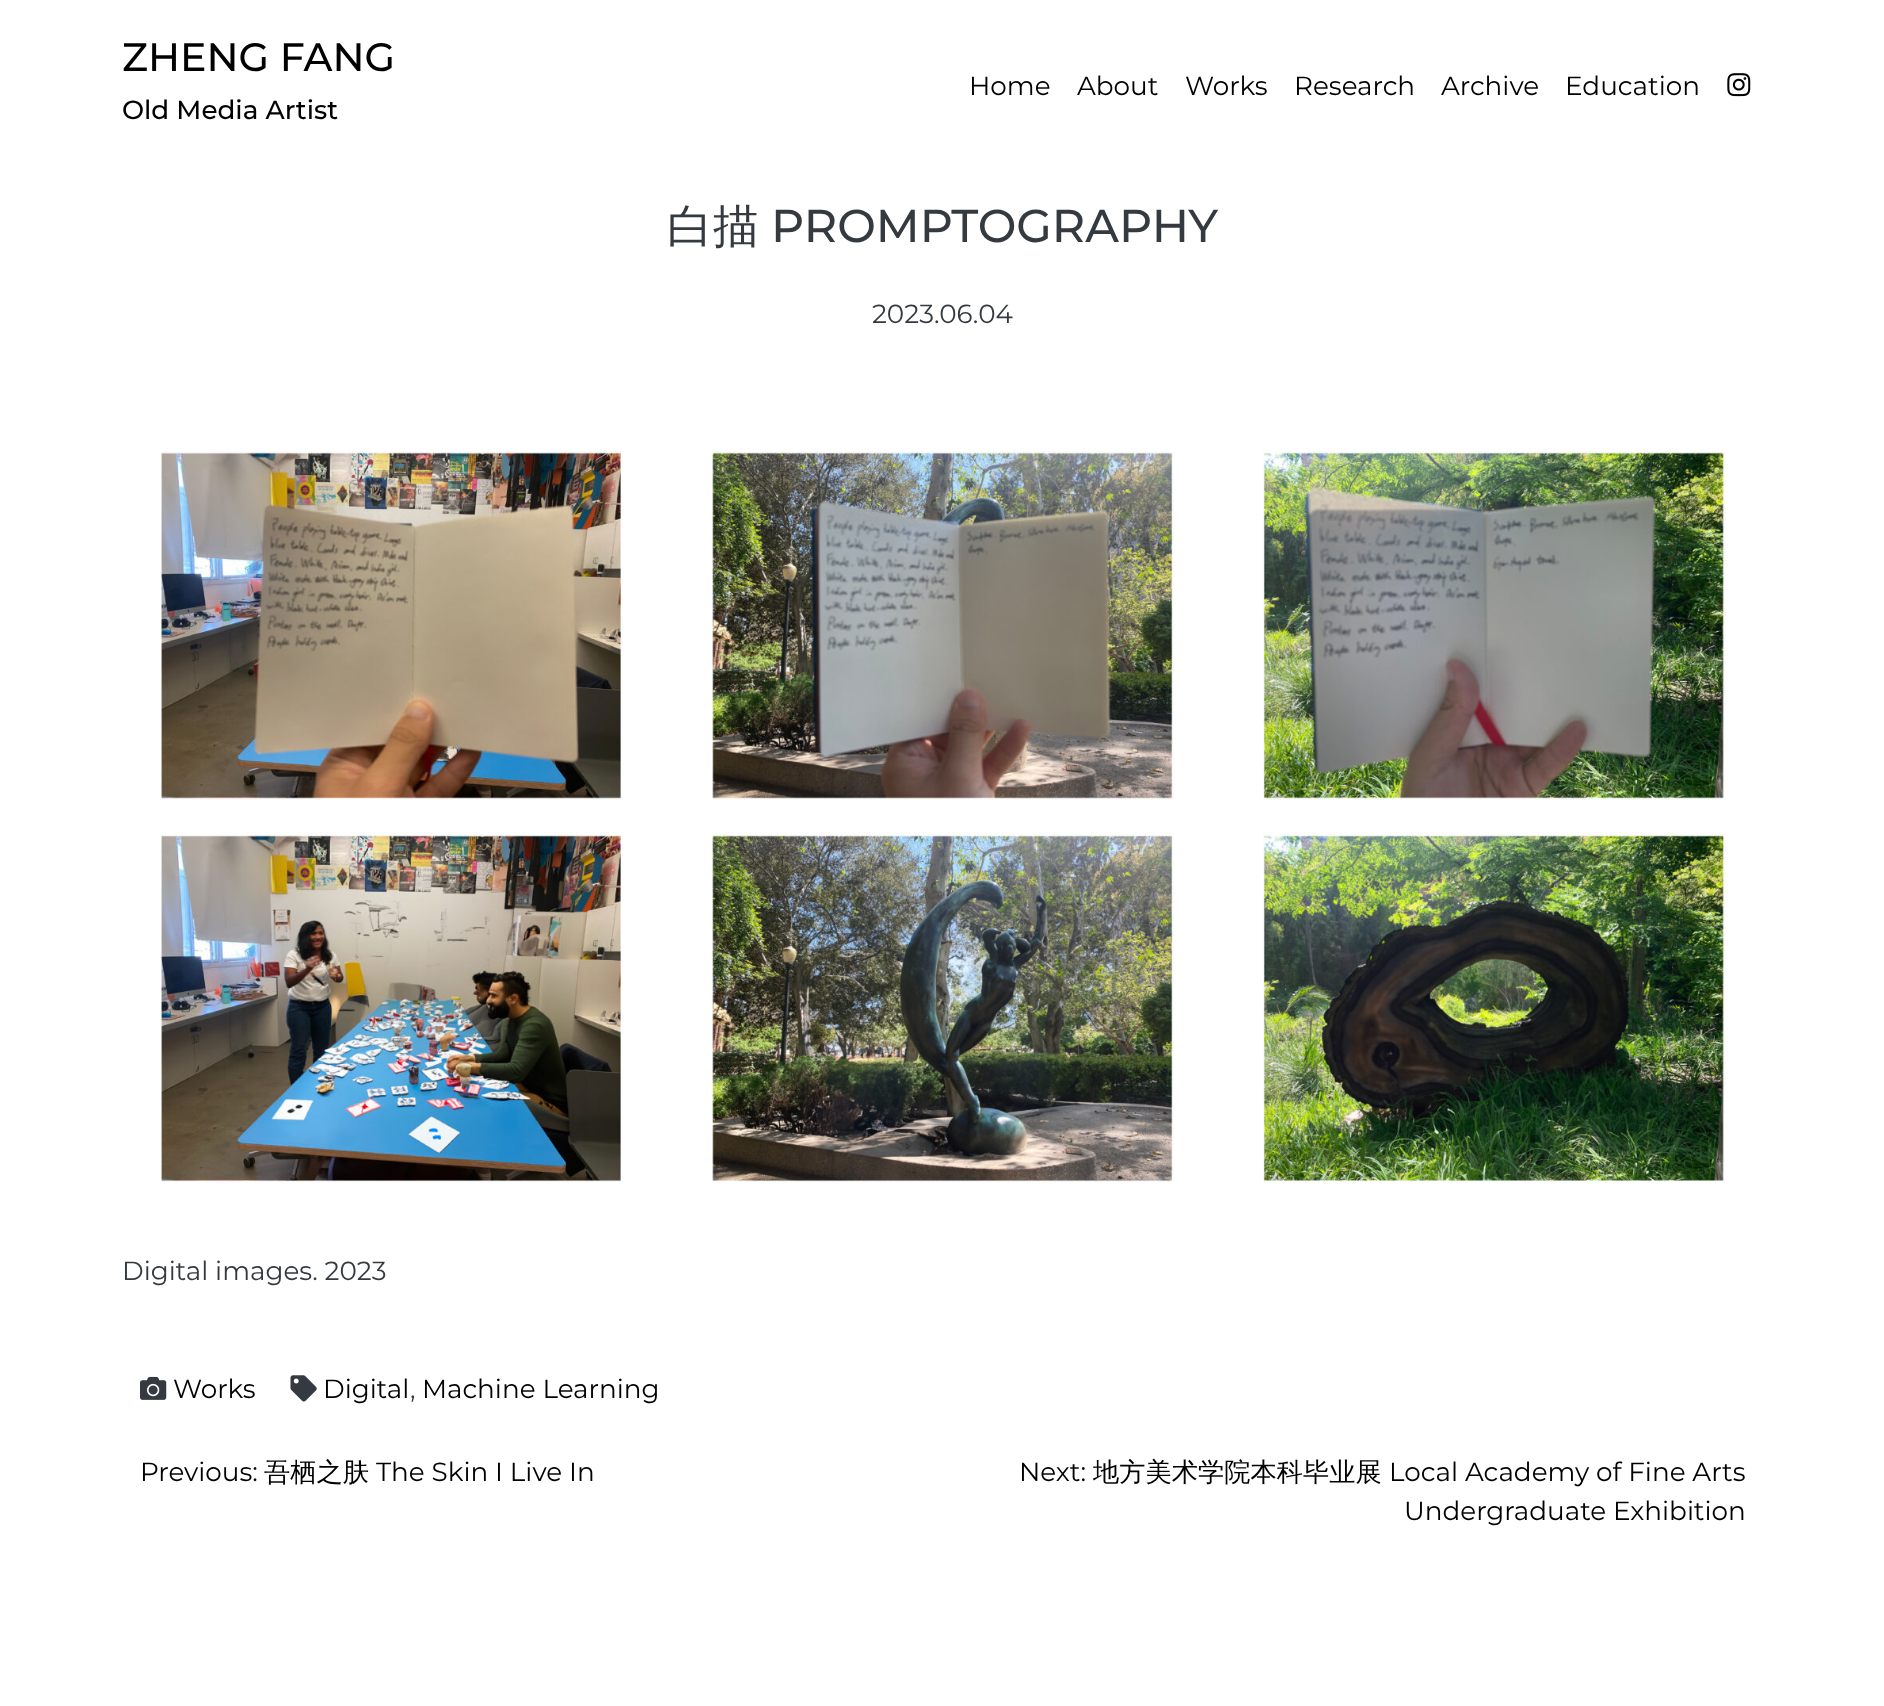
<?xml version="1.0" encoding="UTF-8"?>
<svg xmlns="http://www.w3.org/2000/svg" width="1884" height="1706">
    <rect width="100%" height="100%" fill="#FFFFFF"/>
    <text x="122" y="71" font-family="Montserrat" font-size="39.5" font-weight="500" fill="#000000">ZHENG FANG</text>
    <text x="122" y="119" font-family="Montserrat" font-size="26.25" font-weight="500" fill="#000000">Old Media Artist</text>
    <text x="969" y="95" font-family="Montserrat" font-size="26.25" fill="#000000">Home</text>
    <text x="1077" y="95" font-family="Montserrat" font-size="26.25" fill="#000000">About</text>
    <text x="1185" y="95" font-family="Montserrat" font-size="26.25" fill="#000000">Works</text>
    <text x="1294" y="95" font-family="Montserrat" font-size="26.25" fill="#000000">Research</text>
    <text x="1441" y="95" font-family="Montserrat" font-size="26.25" fill="#000000">Archive</text>
    <text x="1565" y="95" font-family="Montserrat" font-size="26.25" fill="#000000">Education</text>
    <image x="1727" y="73" width="24" height="24" href="img_01.png"/>
    <text x="667" y="242" font-family="WenQuanYi Zen Hei" font-size="46" font-weight="500" fill="#343A40">白描</text>
    <text x="771" y="242" font-family="Montserrat" font-size="46" font-weight="500" fill="#343A40">PROMPTOGRAPHY</text>
    <text x="872" y="323" font-family="Montserrat" font-size="26.25" fill="#343A40">2023.06.04</text>
    <image x="160" y="451" width="463" height="731" href="img_02.png"/>
    <image x="712" y="451" width="463" height="731" href="img_03.png"/>
    <image x="1263" y="451" width="463" height="731" href="img_04.png"/>
    <text x="122" y="1280" font-family="Montserrat" font-size="26.25" fill="#343A40">Digital images. 2023</text>
    <image x="140" y="1376" width="27" height="24" href="img_05.png"/>
    <text x="173" y="1398" font-family="Montserrat" font-size="26.25" fill="#000000">Works</text>
    <image x="290" y="1375" width="27" height="27" href="img_06.png"/>
    <text x="323" y="1398" font-family="Montserrat" font-size="26.25" fill="#000000">Digital</text>
    <text x="410" y="1398" font-family="Montserrat" font-size="26.25" fill="#343A40">,</text>
    <text x="422" y="1398" font-family="Montserrat" font-size="26.25" fill="#000000">Machine Learning</text>
    <text x="140" y="1481" font-family="Montserrat" font-size="26.25" fill="#000000">Previous:</text>
    <text x="264" y="1481" font-family="WenQuanYi Zen Hei" font-size="26.25" font-weight="500" fill="#000000">吾栖之肤</text>
    <text x="376" y="1481" font-family="Montserrat" font-size="26.25" fill="#000000">The Skin I Live In</text>
    <text x="1019" y="1481" font-family="Montserrat" font-size="26.25" fill="#000000">Next:</text>
    <text x="1093" y="1481" font-family="WenQuanYi Zen Hei" font-size="26.25" font-weight="500" fill="#000000">地方美术学院本科毕业展</text>
    <text x="1389" y="1481" font-family="Montserrat" font-size="26.25" fill="#000000">Local Academy of Fine Arts</text>
    <text x="1404" y="1520" font-family="Montserrat" font-size="26.25" fill="#000000">Undergraduate Exhibition</text>
</svg>
